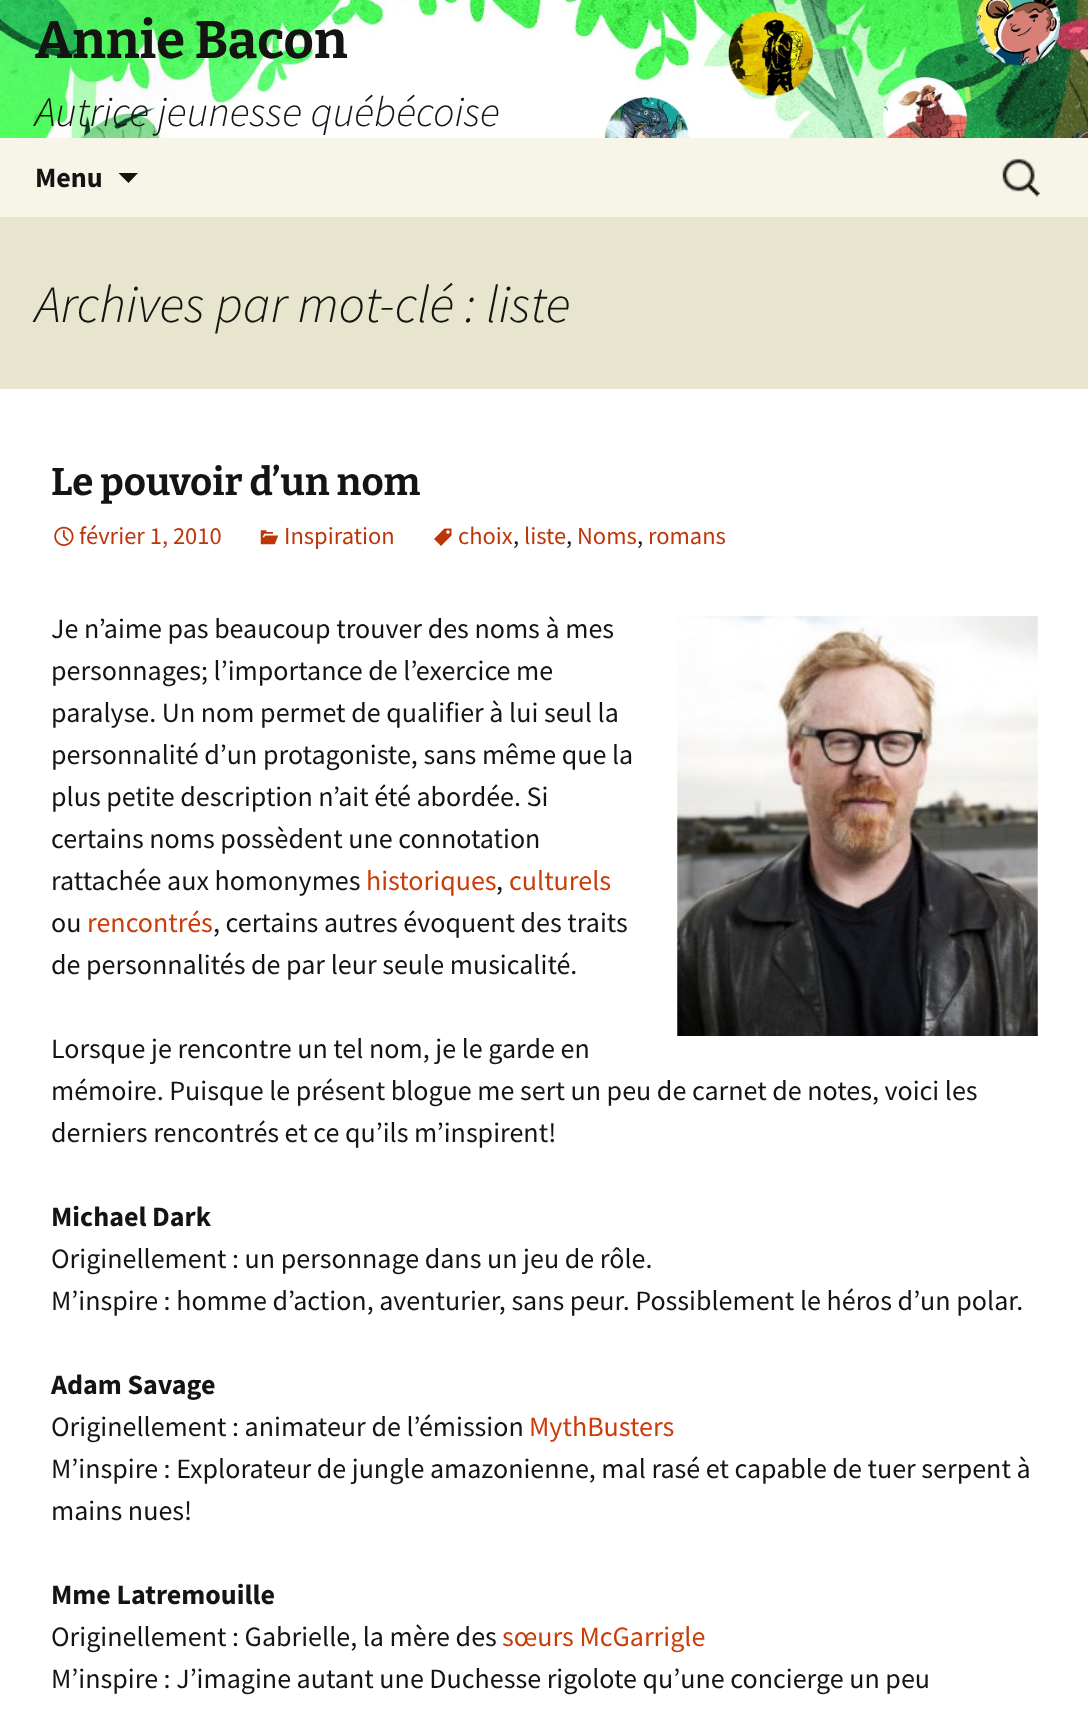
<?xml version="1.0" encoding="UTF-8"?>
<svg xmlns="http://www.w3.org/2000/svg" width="1088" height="1717">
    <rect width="100%" height="100%" fill="#FFFFFF"/>
    <image x="0" y="0" width="1088" height="138" href="img_01.png"/>
    <text x="35" y="58" font-family="Bitter" font-size="52.5" font-weight="700" fill="#141412">Annie Bacon</text>
    <text x="35" y="126" font-family="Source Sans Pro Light" font-size="42" font-weight="300" font-style="italic" fill="#141412">Autrice jeunesse québécoise</text>
    <rect x="0" y="138" width="1088" height="79" fill="#F7F5E7"/>
    <text x="35" y="187" font-family="Source Sans Pro" font-size="28" font-weight="700" fill="#141412">Menu</text>
    <path d="M 118.5 173 L 128.5 183 L 138 173 Z" fill="#141412"/>
    <image x="1002" y="158" width="38" height="39" href="img_02.png"/>
    <rect x="0" y="217" width="1088" height="172" fill="#E8E5CE"/>
    <text x="35" y="322" font-family="Source Sans Pro Light" font-size="52.5" font-weight="300" font-style="italic" fill="#141412">Archives par mot-clé : liste</text>
    <text x="51" y="495" font-family="Bitter" font-size="38.5" font-weight="700" fill="#141412">Le pouvoir d’un nom</text>
    <image x="54" y="526" width="20" height="20" href="img_03.png"/>
    <text x="79" y="544" font-family="Source Sans Pro" font-size="24.5" fill="#BC360A">février 1, 2010</text>
    <image x="260" y="530" width="19" height="15" href="img_04.png"/>
    <text x="284" y="544" font-family="Source Sans Pro" font-size="24.5" fill="#BC360A">Inspiration</text>
    <image x="434" y="528" width="18" height="18" href="img_05.png"/>
    <text x="458" y="544" font-family="Source Sans Pro" font-size="24.5" fill="#BC360A">choix</text>
    <text x="513" y="544" font-family="Source Sans Pro" font-size="24.5" fill="#141412">,</text>
    <text x="524" y="544" font-family="Source Sans Pro" font-size="24.5" fill="#BC360A">liste</text>
    <text x="566" y="544" font-family="Source Sans Pro" font-size="24.5" fill="#141412">,</text>
    <text x="577" y="544" font-family="Source Sans Pro" font-size="24.5" fill="#BC360A">Noms</text>
    <text x="637" y="544" font-family="Source Sans Pro" font-size="24.5" fill="#141412">,</text>
    <text x="648" y="544" font-family="Source Sans Pro" font-size="24.5" fill="#BC360A">romans</text>
    <text x="51" y="638" font-family="Source Sans Pro" font-size="28" fill="#141412">Je n’aime pas beaucoup trouver des noms à mes</text>
    <image x="677" y="616" width="361" height="420" href="img_06.png"/>
    <text font-family="Source Sans Pro" font-size="28" fill="#141412">
        <tspan x="51" y="680">personnages; l’importance de l’exercice me</tspan>
        <tspan x="51" y="722">paralyse. Un nom permet de qualifier à lui seul la</tspan>
        <tspan x="51" y="764">personnalité d’un protagoniste, sans même que la</tspan>
        <tspan x="51" y="806">plus petite description n’ait été abordée. Si</tspan>
        <tspan x="51" y="848">certains noms possèdent une connotation</tspan>
        <tspan x="51" y="890">rattachée aux homonymes</tspan>
    </text>
    <text x="366" y="890" font-family="Source Sans Pro" font-size="28" fill="#CA3C08">historiques</text>
    <text x="496" y="890" font-family="Source Sans Pro" font-size="28" fill="#141412">,</text>
    <text x="509" y="890" font-family="Source Sans Pro" font-size="28" fill="#CA3C08">culturels</text>
    <text x="51" y="932" font-family="Source Sans Pro" font-size="28" fill="#141412">ou</text>
    <text x="87" y="932" font-family="Source Sans Pro" font-size="28" fill="#CA3C08">rencontrés</text>
    <text x="213" y="932" font-family="Source Sans Pro" font-size="28" fill="#141412">, certains autres évoquent des traits</text>
    <text x="51" y="974" font-family="Source Sans Pro" font-size="28" fill="#141412">de personnalités de par leur seule musicalité.</text>
    <text font-family="Source Sans Pro" font-size="28" fill="#141412">
        <tspan x="51" y="1058">Lorsque je rencontre un tel nom, je le garde en</tspan>
        <tspan x="51" y="1100">mémoire. Puisque le présent blogue me sert un peu de carnet de notes, voici les</tspan>
        <tspan x="51" y="1142">derniers rencontrés et ce qu’ils m’inspirent!</tspan>
    </text>
    <text x="51" y="1226" font-family="Source Sans Pro" font-size="28" font-weight="700" fill="#141412">Michael Dark</text>
    <text font-family="Source Sans Pro" font-size="28" fill="#141412">
        <tspan x="51" y="1268">Originellement : un personnage dans un jeu de rôle.</tspan>
        <tspan x="51" y="1310">M’inspire : homme d’action, aventurier, sans peur. Possiblement le héros d’un polar.</tspan>
    </text>
    <text x="51" y="1394" font-family="Source Sans Pro" font-size="28" font-weight="700" fill="#141412">Adam Savage</text>
    <text x="51" y="1436" font-family="Source Sans Pro" font-size="28" fill="#141412">Originellement : animateur de l’émission</text>
    <text x="529" y="1436" font-family="Source Sans Pro" font-size="28" fill="#CA3C08">MythBusters</text>
    <text font-family="Source Sans Pro" font-size="28" fill="#141412">
        <tspan x="51" y="1478">M’inspire : Explorateur de jungle amazonienne, mal rasé et capable de tuer serpent à</tspan>
        <tspan x="51" y="1520">mains nues!</tspan>
    </text>
    <text x="51" y="1604" font-family="Source Sans Pro" font-size="28" font-weight="700" fill="#141412">Mme Latremouille</text>
    <text x="51" y="1646" font-family="Source Sans Pro" font-size="28" fill="#141412">Originellement : Gabrielle, la mère des</text>
    <text x="502" y="1646" font-family="Source Sans Pro" font-size="28" fill="#CA3C08">sœurs McGarrigle</text>
    <text x="51" y="1688" font-family="Source Sans Pro" font-size="28" fill="#141412">M’inspire : J’imagine autant une Duchesse rigolote qu’une concierge un peu</text>
</svg>
